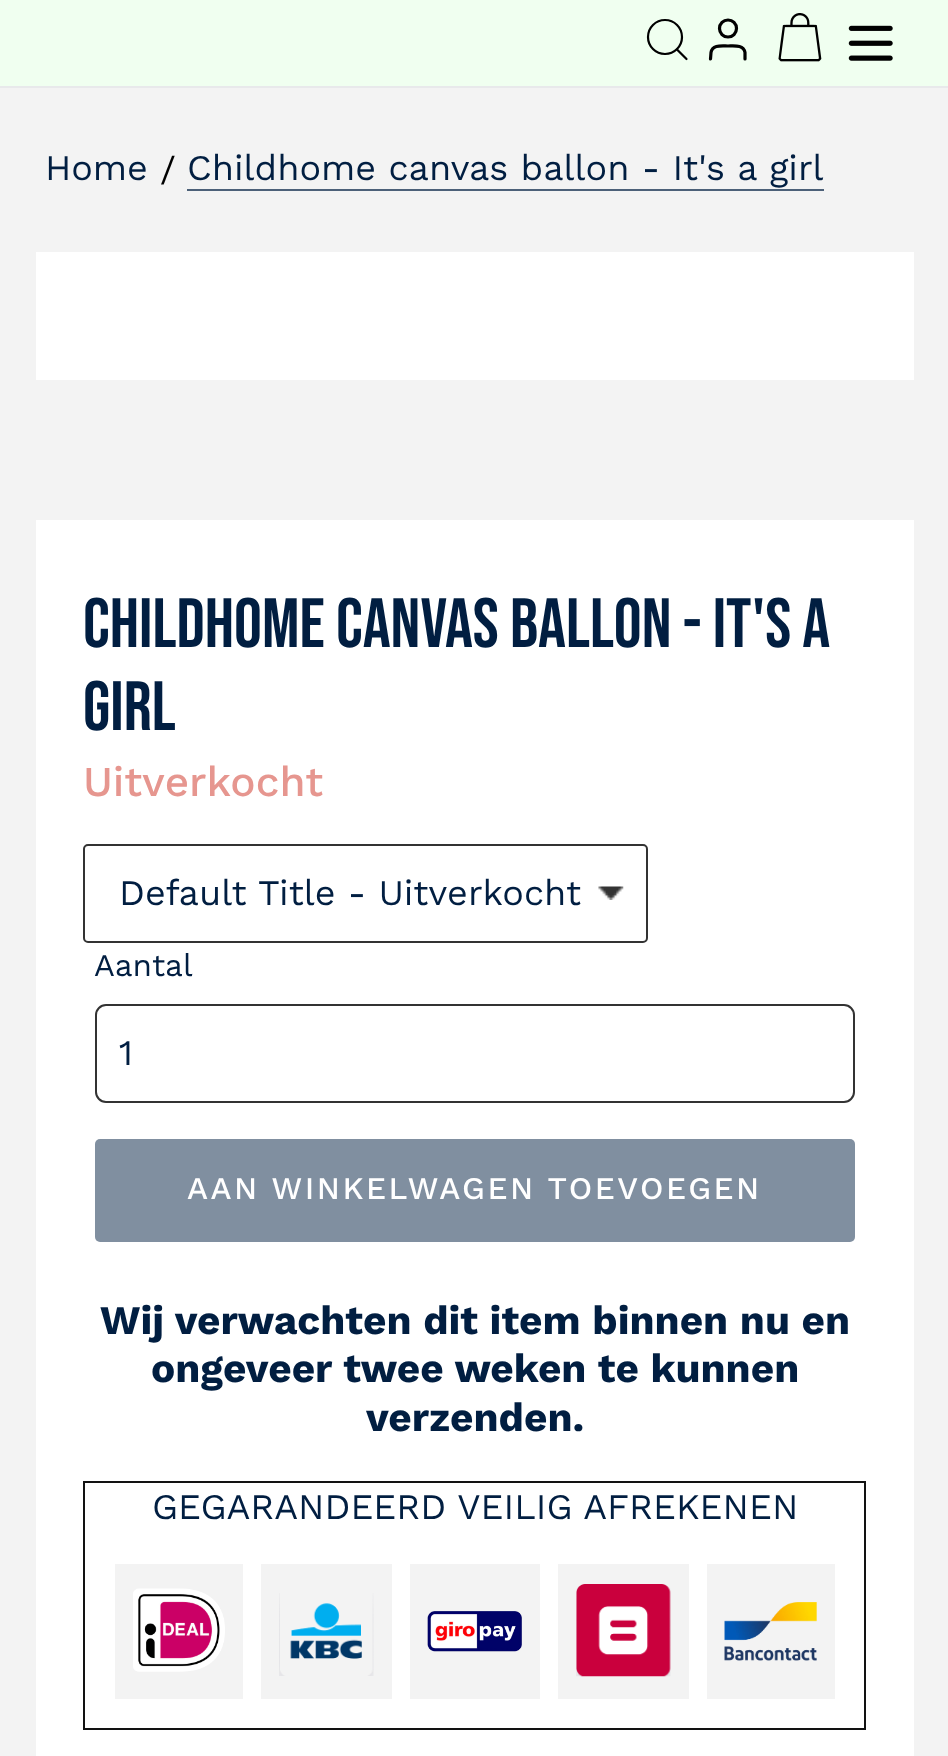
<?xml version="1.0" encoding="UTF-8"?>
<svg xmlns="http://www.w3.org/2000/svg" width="948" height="1756">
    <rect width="100%" height="100%" fill="#F0FFF0"/>
    <rect x="0" y="86" width="948" height="2" fill="#E8E9EB"/>
    <circle cx="665" cy="37" r="17" fill="none" stroke="#000000" stroke-width="2.2"/>
    <path d="M 686.5 59 L 677 49.5" fill="none" stroke="#000000" stroke-width="2.2" stroke-linecap="round" stroke-linejoin="round"/>
    <path d="M 745 59 V 52.5 C 743.5 44.5 734 46 728 46 C 721.5 46 712.5 44.5 711 52.5 L 710.5 59" fill="none" stroke="#000000" stroke-width="3.2" stroke-linecap="round" stroke-linejoin="round"/>
    <circle cx="728" cy="28.5" r="8.5" fill="none" stroke="#000000" stroke-width="3.2"/>
    <image x="778" y="13" width="44" height="49" href="img_01.png"/>
    <image x="848" y="25" width="45" height="36" href="img_02.png"/>
    <rect x="0" y="88" width="948" height="1668" fill="#F3F3F3"/>
    <text x="45" y="180" font-family="Work Sans" font-size="36" fill="#011E41">Home</text>
    <text x="160" y="182" font-family="Work Sans" font-size="36" fill="#000000">/</text>
    <text x="187" y="180" font-family="Work Sans" font-size="36" fill="#011E41">Childhome canvas ballon - It's a girl</text>
    <rect x="187" y="189" width="637" height="2" fill="#4C6078"/>
    <rect x="36" y="252" width="878" height="128" fill="#FFFFFF"/>
    <rect x="36" y="520" width="878" height="1236" fill="#FFFFFF"/>
    <text font-family="Bebas Neue" font-size="69.75" fill="#011E41">
        <tspan x="83" y="647">Childhome canvas ballon - It's a</tspan>
        <tspan x="83" y="730">girl</tspan>
    </text>
    <text x="83" y="796" font-family="Work Sans" font-size="42.25" font-weight="500" fill="#E6968F">Uitverkocht</text>
    <image x="598" y="886" width="26" height="14" href="img_03.png"/>
    <rect x="84" y="845" width="563" height="97" rx="4" fill="none" stroke="#333333" stroke-width="2"/>
    <text x="119" y="905" font-family="Work Sans" font-size="36" fill="#011E41">Default Title - Uitverkocht</text>
    <text x="94" y="976" font-family="Work Sans" font-size="31.5" fill="#011E41">Aantal</text>
    <rect x="96" y="1005" width="758" height="97" rx="10" fill="none" stroke="#333333" stroke-width="2"/>
    <text x="119" y="1065" font-family="Work Sans" font-size="36" fill="#011E41">1</text>
    <rect x="95" y="1139" width="760" height="103" rx="5" fill="#808FA0"/>
    <text x="187" y="1199" font-family="Work Sans" font-size="31.5" font-weight="500" letter-spacing="2.5" fill="#FFFFFF">AAN WINKELWAGEN TOEVOEGEN</text>
    <text x="100" y="1334" font-family="Work Sans" font-size="40.5" font-weight="700" fill="#011E41">Wij verwachten dit item binnen nu en</text>
    <text x="151" y="1382" font-family="Work Sans" font-size="40.5" font-weight="700" fill="#011E41">ongeveer twee weken te kunnen</text>
    <text x="366" y="1431" font-family="Work Sans" font-size="40.5" font-weight="700" fill="#011E41">verzenden.</text>
    <rect x="84" y="1482" width="781" height="247" fill="none" stroke="#121212" stroke-width="2"/>
    <text x="152" y="1519" font-family="Work Sans" font-size="36" fill="#011E41">GEGARANDEERD VEILIG AFREKENEN</text>
    <rect x="115" y="1564" width="128" height="135" fill="#F3F3F3"/>
    <image x="133" y="1588" width="92" height="84" href="img_04.png"/>
    <rect x="261" y="1564" width="131" height="135" fill="#F3F3F3"/>
    <image x="279" y="1593" width="95" height="83" href="img_05.png"/>
    <rect x="410" y="1564" width="130" height="135" fill="#F3F3F3"/>
    <image x="427" y="1611" width="95" height="41" href="img_06.png"/>
    <rect x="558" y="1564" width="131" height="135" fill="#F3F3F3"/>
    <image x="576" y="1584" width="95" height="93" href="img_07.png"/>
    <rect x="707" y="1564" width="128" height="135" fill="#F3F3F3"/>
    <image x="724" y="1602" width="93" height="59" href="img_08.png"/>
</svg>
